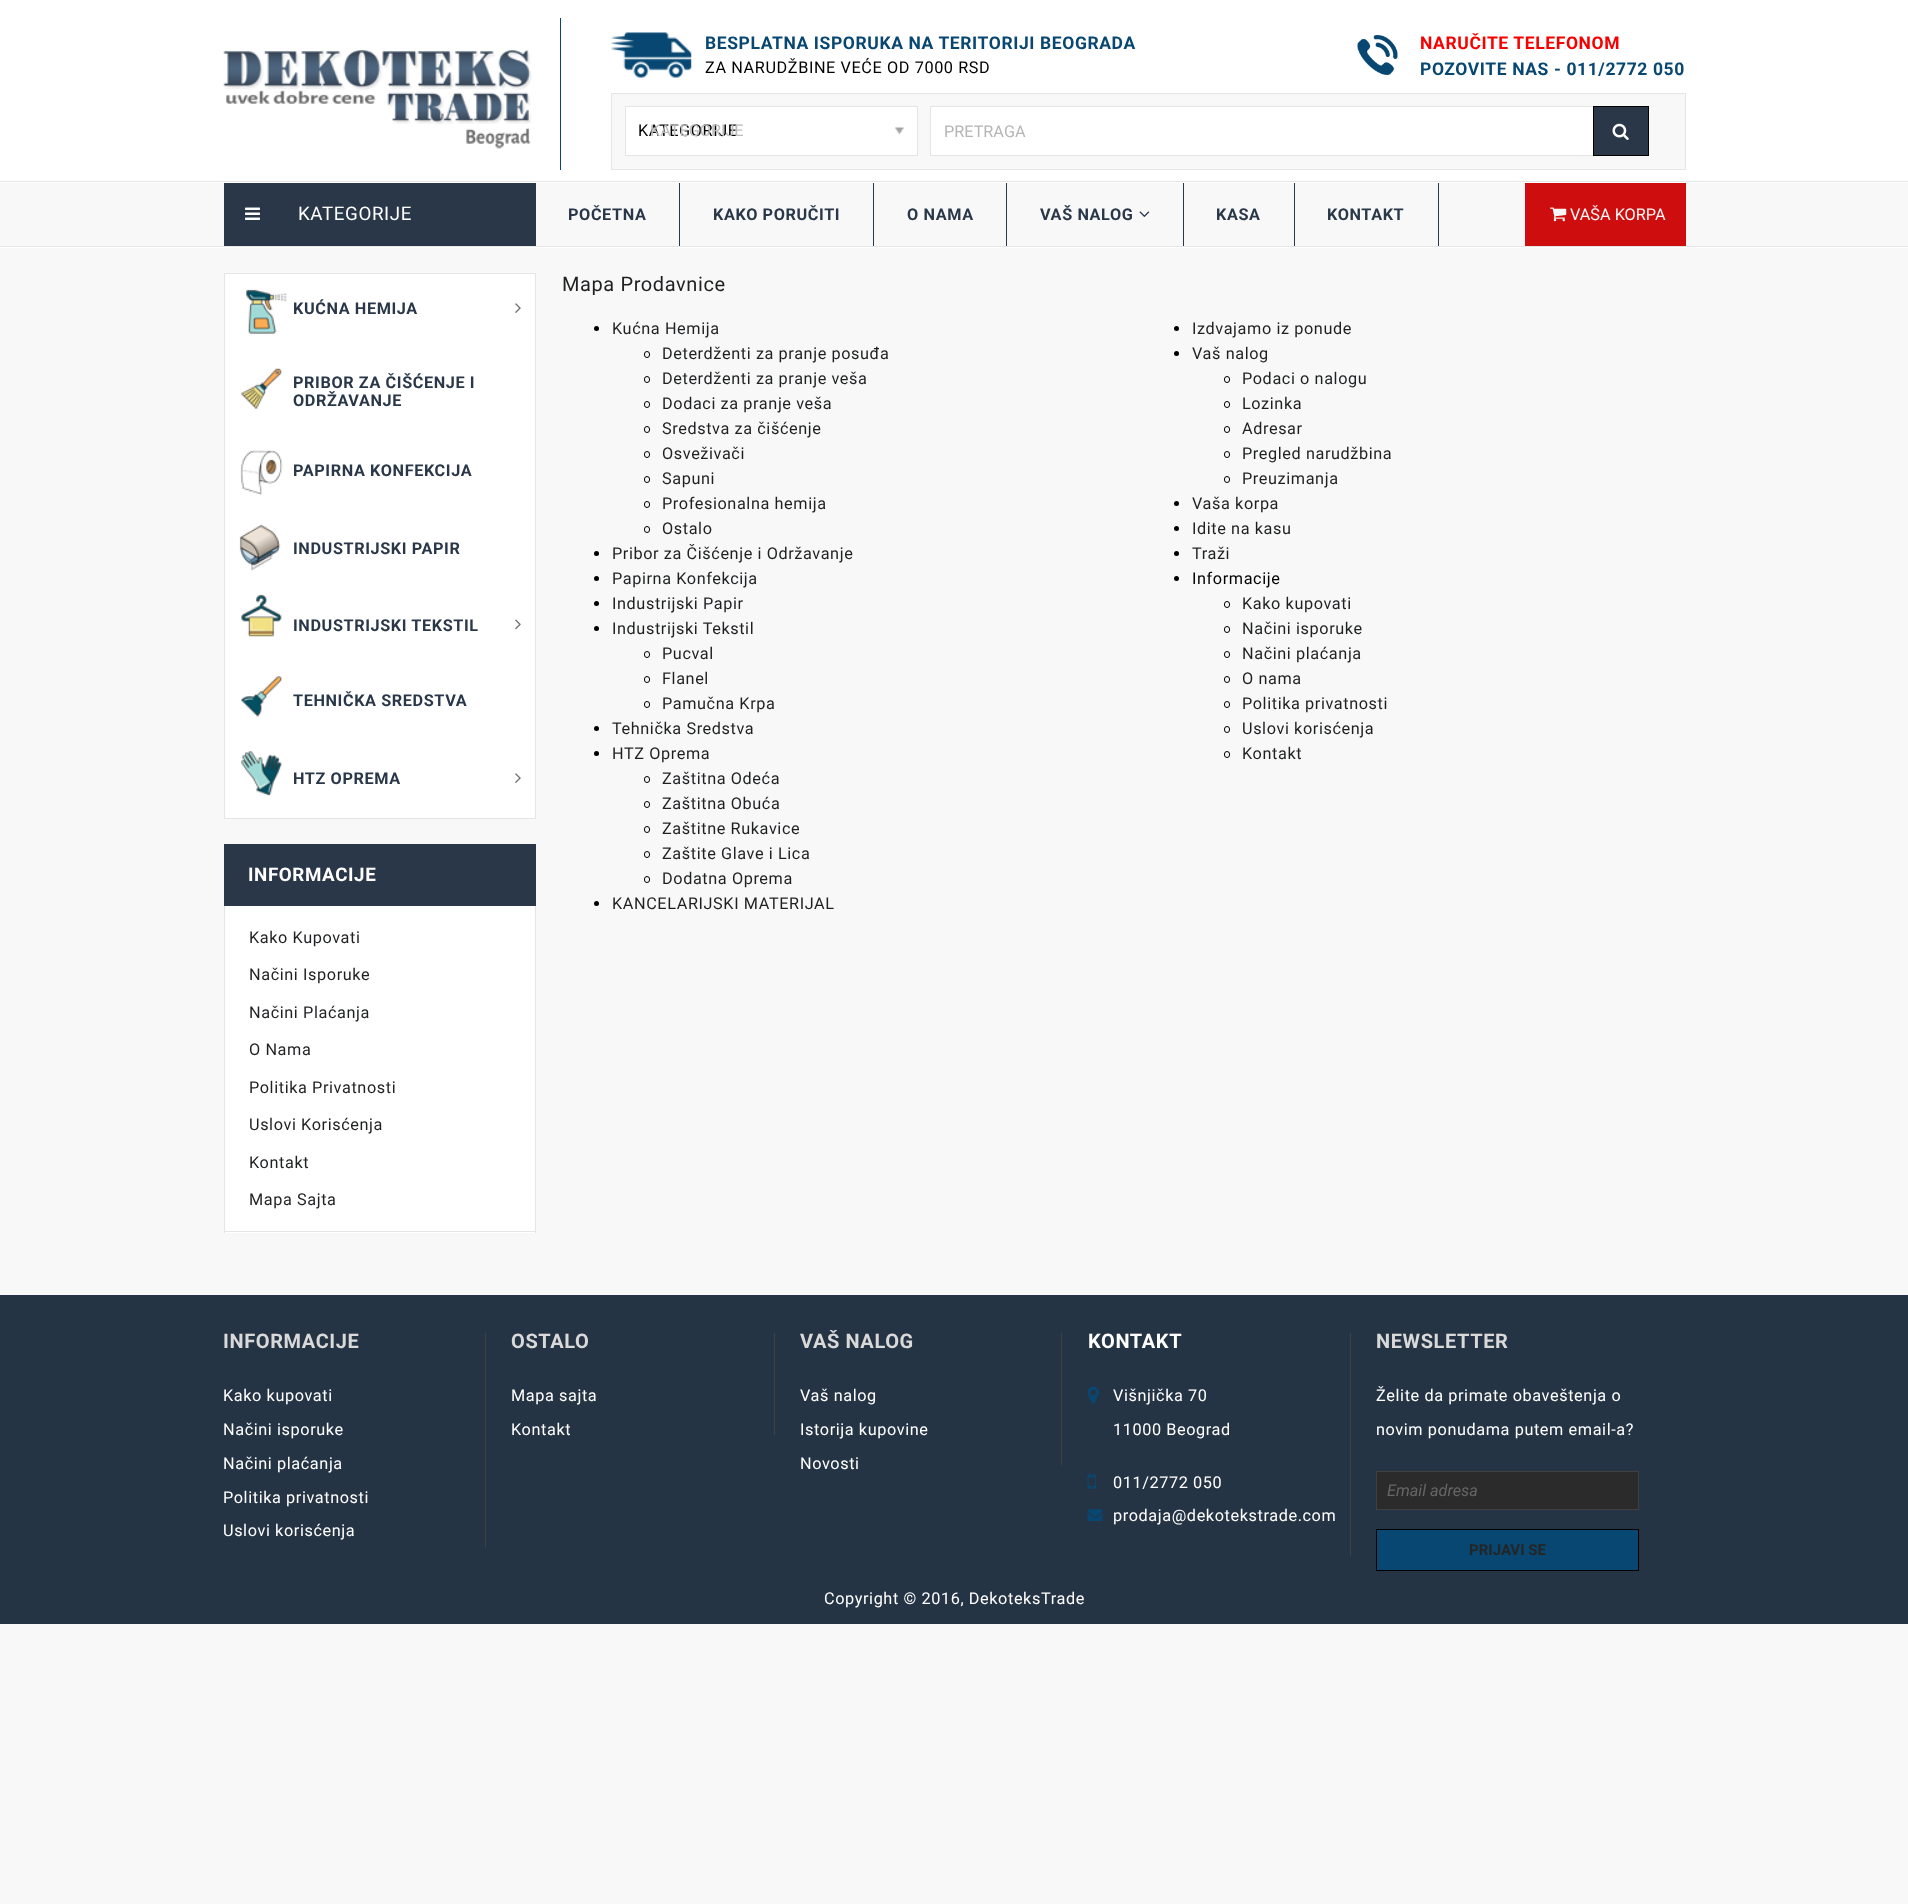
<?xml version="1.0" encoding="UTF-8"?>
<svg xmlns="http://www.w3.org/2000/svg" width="1908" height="1904">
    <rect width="100%" height="100%" fill="#F8F8F8"/>
    <rect x="0" y="0" width="1908" height="181" fill="#FFFFFF"/>
    <image x="223" y="50" width="309" height="99" href="img_01.png"/>
    <rect x="560" y="18" width="1" height="152" fill="#074772"/>
    <image x="611" y="32" width="81" height="46" href="img_02.png"/>
    <text x="705" y="49" font-family="Roboto" font-size="17.5" font-weight="700" letter-spacing="0.6" fill="#074772">BESPLATNA ISPORUKA NA TERITORIJI BEOGRADA</text>
    <text x="705" y="73" font-family="Roboto" font-size="16.25" letter-spacing="0.6" fill="#000000">ZA NARUDŽBINE VEĆE OD 7000 RSD</text>
    <image x="1357" y="35" width="41" height="40" href="img_03.png"/>
    <text x="1420" y="49" font-family="Roboto" font-size="17.5" font-weight="700" letter-spacing="0.6" fill="#F70000">NARUČITE TELEFONOM</text>
    <text x="1420" y="75" font-family="Roboto" font-size="17.5" font-weight="700" letter-spacing="0.6" fill="#074772">POZOVITE NAS - 011/2772 050</text>
    <rect x="611.5" y="93.5" width="1074" height="76" fill="#F8F8F8" stroke="#E5E5E5"/>
    <rect x="625.5" y="106.5" width="292" height="49" fill="#FFFFFF" stroke="#E5E5E5"/>
    <image x="895" y="127" width="9" height="7" href="img_04.png"/>
    <text x="638" y="136" font-family="Roboto" font-size="16.25" letter-spacing="0.6" fill="#000000">KATEGORIJE</text>
    <text x="650" y="136" font-family="Roboto" font-size="16.25" fill="#BCBCBC">KATEGORIJE</text>
    <rect x="931" y="107" width="662" height="48" fill="#FFFFFF"/>
    <rect x="930" y="106" width="663" height="1" fill="#E5E5E5"/>
    <rect x="930" y="155" width="663" height="1" fill="#E5E5E5"/>
    <rect x="930" y="106" width="1" height="50" fill="#E5E5E5"/>
    <text x="944" y="137" font-family="Roboto" font-size="16.25" fill="#B5B5B5">PRETRAGA</text>
    <rect x="1593.5" y="106.5" width="55" height="49" fill="#293749" stroke="#000000"/>
    <image x="1612" y="123" width="17" height="17" href="img_05.png"/>
    <rect x="0" y="182" width="1908" height="66" fill="#FFFFFF"/>
    <rect x="0" y="181" width="1908" height="1" fill="#E5E5E5"/>
    <rect x="0" y="246" width="1908" height="1" fill="#E5E5E5"/>
    <rect x="0" y="183" width="1908" height="63" fill="#F8F8F8"/>
    <rect x="224" y="183" width="312" height="63" fill="#293749"/>
    <image x="245" y="207" width="15" height="13" href="img_06.png"/>
    <text x="298" y="220" font-family="Roboto" font-size="18.75" letter-spacing="0.6" fill="#FFFFFF">KATEGORIJE</text>
    <rect x="679" y="183" width="1" height="63" fill="#293749"/>
    <text x="568" y="220" font-family="Roboto" font-size="16.25" font-weight="700" letter-spacing="0.6" fill="#293749">POČETNA</text>
    <rect x="873" y="183" width="1" height="63" fill="#293749"/>
    <text x="713" y="220" font-family="Roboto" font-size="16.25" font-weight="700" letter-spacing="0.6" fill="#293749">KAKO PORUČITI</text>
    <rect x="1006" y="183" width="1" height="63" fill="#293749"/>
    <text x="907" y="220" font-family="Roboto" font-size="16.25" font-weight="700" letter-spacing="0.6" fill="#293749">O NAMA</text>
    <rect x="1183" y="183" width="1" height="63" fill="#293749"/>
    <text x="1040" y="220" font-family="Roboto" font-size="16.25" font-weight="700" letter-spacing="0.6" fill="#293749">VAŠ NALOG</text>
    <image x="1139" y="211" width="11" height="6" href="img_07.png"/>
    <rect x="1294" y="183" width="1" height="63" fill="#293749"/>
    <text x="1216" y="220" font-family="Roboto" font-size="16.25" font-weight="700" letter-spacing="0.6" fill="#293749">KASA</text>
    <rect x="1438" y="183" width="1" height="63" fill="#293749"/>
    <text x="1327" y="220" font-family="Roboto" font-size="16.25" font-weight="700" letter-spacing="0.6" fill="#293749">KONTAKT</text>
    <rect x="1525" y="183" width="161" height="63" fill="#CE0E0E"/>
    <image x="1550" y="207" width="17" height="15" href="img_08.png"/>
    <text x="1570" y="220" font-family="Roboto" font-size="16.25" fill="#F8F8F8">VAŠA KORPA</text>
    <rect x="224.5" y="273.5" width="311" height="545" fill="#FFFFFF" stroke="#E5E5E5"/>
    <image x="246" y="289" width="41" height="45" href="img_09.png"/>
    <text x="293" y="314" font-family="Roboto" font-size="16.25" font-weight="700" letter-spacing="0.6" fill="#293749">KUĆNA HEMIJA</text>
    <image x="515" y="303" width="6" height="10" href="img_10.png"/>
    <image x="241" y="368" width="41" height="41" href="img_11.png"/>
    <text font-family="Roboto" font-size="16.25" font-weight="700" letter-spacing="0.6" fill="#293749">
        <tspan x="293" y="388">PRIBOR ZA ČIŠĆENJE I</tspan>
        <tspan x="293" y="406">ODRŽAVANJE</tspan>
    </text>
    <image x="240" y="450" width="43" height="46" href="img_12.png"/>
    <text x="293" y="476" font-family="Roboto" font-size="16.25" font-weight="700" letter-spacing="0.6" fill="#293749">PAPIRNA KONFEKCIJA</text>
    <image x="239" y="524" width="42" height="47" href="img_13.png"/>
    <text x="293" y="554" font-family="Roboto" font-size="16.25" font-weight="700" letter-spacing="0.6" fill="#293749">INDUSTRIJSKI PAPIR</text>
    <image x="241" y="594" width="41" height="43" href="img_14.png"/>
    <text x="293" y="631" font-family="Roboto" font-size="16.25" font-weight="700" letter-spacing="0.6" fill="#293749">INDUSTRIJSKI TEKSTIL</text>
    <image x="515" y="619" width="6" height="11" href="img_15.png"/>
    <image x="241" y="676" width="41" height="41" href="img_16.png"/>
    <text x="293" y="706" font-family="Roboto" font-size="16.25" font-weight="700" letter-spacing="0.6" fill="#293749">TEHNIČKA SREDSTVA</text>
    <image x="241" y="751" width="41" height="45" href="img_17.png"/>
    <text x="293" y="784" font-family="Roboto" font-size="16.25" font-weight="700" letter-spacing="0.6" fill="#293749">HTZ OPREMA</text>
    <image x="515" y="773" width="6" height="10" href="img_10.png"/>
    <rect x="224" y="844" width="312" height="62" fill="#293749"/>
    <text x="248" y="881" font-family="Roboto" font-size="18.75" font-weight="700" letter-spacing="0.6" fill="#FFFFFF">INFORMACIJE</text>
    <rect x="225" y="906" width="310" height="327" fill="#FFFFFF"/>
    <rect x="535" y="906" width="1" height="327" fill="#E5E5E5"/>
    <rect x="224" y="1231" width="312" height="1" fill="#E5E5E5"/>
    <rect x="224" y="906" width="1" height="327" fill="#E5E5E5"/>
    <text x="249" y="943" font-family="Roboto" font-size="16.25" letter-spacing="0.6" fill="#1F2022">Kako Kupovati</text>
    <text x="249" y="980" font-family="Roboto" font-size="16.25" letter-spacing="0.6" fill="#1F2022">Načini Isporuke</text>
    <text x="249" y="1018" font-family="Roboto" font-size="16.25" letter-spacing="0.6" fill="#1F2022">Načini Plaćanja</text>
    <text x="249" y="1055" font-family="Roboto" font-size="16.25" letter-spacing="0.6" fill="#1F2022">O Nama</text>
    <text x="249" y="1093" font-family="Roboto" font-size="16.25" letter-spacing="0.6" fill="#1F2022">Politika Privatnosti</text>
    <text x="249" y="1130" font-family="Roboto" font-size="16.25" letter-spacing="0.6" fill="#1F2022">Uslovi Korisćenja</text>
    <text x="249" y="1168" font-family="Roboto" font-size="16.25" letter-spacing="0.6" fill="#1F2022">Kontakt</text>
    <text x="249" y="1205" font-family="Roboto" font-size="16.25" letter-spacing="0.6" fill="#1F2022">Mapa Sajta</text>
    <text x="562" y="291" font-family="Roboto" font-size="20" letter-spacing="0.6" fill="#1F2022">Mapa Prodavnice</text>
    <circle cx="596.5" cy="328.5" r="2.5" fill="#000000"/>
    <text x="612" y="334" font-family="Roboto" font-size="16.25" letter-spacing="0.6" fill="#1F2022">Kućna Hemija</text>
    <rect x="644.5" y="351.5" width="5" height="6" rx="2.5" fill="none" stroke="#000000"/>
    <text x="662" y="359" font-family="Roboto" font-size="16.25" letter-spacing="0.6" fill="#1F2022">Deterdženti za pranje posuđa</text>
    <rect x="644.5" y="376.5" width="5" height="6" rx="2.5" fill="none" stroke="#000000"/>
    <text x="662" y="384" font-family="Roboto" font-size="16.25" letter-spacing="0.6" fill="#1F2022">Deterdženti za pranje veša</text>
    <rect x="644.5" y="401.5" width="5" height="6" rx="2.5" fill="none" stroke="#000000"/>
    <text x="662" y="409" font-family="Roboto" font-size="16.25" letter-spacing="0.6" fill="#1F2022">Dodaci za pranje veša</text>
    <rect x="644.5" y="426.5" width="5" height="6" rx="2.5" fill="none" stroke="#000000"/>
    <text x="662" y="434" font-family="Roboto" font-size="16.25" letter-spacing="0.6" fill="#1F2022">Sredstva za čišćenje</text>
    <rect x="644.5" y="451.5" width="5" height="6" rx="2.5" fill="none" stroke="#000000"/>
    <text x="662" y="459" font-family="Roboto" font-size="16.25" letter-spacing="0.6" fill="#1F2022">Osveživači</text>
    <rect x="644.5" y="476.5" width="5" height="6" rx="2.5" fill="none" stroke="#000000"/>
    <text x="662" y="484" font-family="Roboto" font-size="16.25" letter-spacing="0.6" fill="#1F2022">Sapuni</text>
    <rect x="644.5" y="501.5" width="5" height="6" rx="2.5" fill="none" stroke="#000000"/>
    <text x="662" y="509" font-family="Roboto" font-size="16.25" letter-spacing="0.6" fill="#1F2022">Profesionalna hemija</text>
    <rect x="644.5" y="526.5" width="5" height="6" rx="2.5" fill="none" stroke="#000000"/>
    <text x="662" y="534" font-family="Roboto" font-size="16.25" letter-spacing="0.6" fill="#1F2022">Ostalo</text>
    <circle cx="596.5" cy="553.5" r="2.5" fill="#000000"/>
    <text x="612" y="559" font-family="Roboto" font-size="16.25" letter-spacing="0.6" fill="#1F2022">Pribor za Čišćenje i Održavanje</text>
    <circle cx="596.5" cy="578.5" r="2.5" fill="#000000"/>
    <text x="612" y="584" font-family="Roboto" font-size="16.25" letter-spacing="0.6" fill="#1F2022">Papirna Konfekcija</text>
    <circle cx="596.5" cy="603.5" r="2.5" fill="#000000"/>
    <text x="612" y="609" font-family="Roboto" font-size="16.25" letter-spacing="0.6" fill="#1F2022">Industrijski Papir</text>
    <circle cx="596.5" cy="628.5" r="2.5" fill="#000000"/>
    <text x="612" y="634" font-family="Roboto" font-size="16.25" letter-spacing="0.6" fill="#1F2022">Industrijski Tekstil</text>
    <rect x="644.5" y="651.5" width="5" height="6" rx="2.5" fill="none" stroke="#000000"/>
    <text x="662" y="659" font-family="Roboto" font-size="16.25" letter-spacing="0.6" fill="#1F2022">Pucval</text>
    <rect x="644.5" y="676.5" width="5" height="6" rx="2.5" fill="none" stroke="#000000"/>
    <text x="662" y="684" font-family="Roboto" font-size="16.25" letter-spacing="0.6" fill="#1F2022">Flanel</text>
    <rect x="644.5" y="701.5" width="5" height="6" rx="2.5" fill="none" stroke="#000000"/>
    <text x="662" y="709" font-family="Roboto" font-size="16.25" letter-spacing="0.6" fill="#1F2022">Pamučna Krpa</text>
    <circle cx="596.5" cy="728.5" r="2.5" fill="#000000"/>
    <text x="612" y="734" font-family="Roboto" font-size="16.25" letter-spacing="0.6" fill="#1F2022">Tehnička Sredstva</text>
    <circle cx="596.5" cy="753.5" r="2.5" fill="#000000"/>
    <text x="612" y="759" font-family="Roboto" font-size="16.25" letter-spacing="0.6" fill="#1F2022">HTZ Oprema</text>
    <rect x="644.5" y="776.5" width="5" height="6" rx="2.5" fill="none" stroke="#000000"/>
    <text x="662" y="784" font-family="Roboto" font-size="16.25" letter-spacing="0.6" fill="#1F2022">Zaštitna Odeća</text>
    <rect x="644.5" y="801.5" width="5" height="6" rx="2.5" fill="none" stroke="#000000"/>
    <text x="662" y="809" font-family="Roboto" font-size="16.25" letter-spacing="0.6" fill="#1F2022">Zaštitna Obuća</text>
    <rect x="644.5" y="826.5" width="5" height="6" rx="2.5" fill="none" stroke="#000000"/>
    <text x="662" y="834" font-family="Roboto" font-size="16.25" letter-spacing="0.6" fill="#1F2022">Zaštitne Rukavice</text>
    <rect x="644.5" y="851.5" width="5" height="6" rx="2.5" fill="none" stroke="#000000"/>
    <text x="662" y="859" font-family="Roboto" font-size="16.25" letter-spacing="0.6" fill="#1F2022">Zaštite Glave i Lica</text>
    <rect x="644.5" y="876.5" width="5" height="6" rx="2.5" fill="none" stroke="#000000"/>
    <text x="662" y="884" font-family="Roboto" font-size="16.25" letter-spacing="0.6" fill="#1F2022">Dodatna Oprema</text>
    <circle cx="596.5" cy="903.5" r="2.5" fill="#000000"/>
    <text x="612" y="909" font-family="Roboto" font-size="16.25" letter-spacing="0.6" fill="#1F2022">KANCELARIJSKI MATERIJAL</text>
    <circle cx="1176.5" cy="328.5" r="2.5" fill="#000000"/>
    <text x="1192" y="334" font-family="Roboto" font-size="16.25" letter-spacing="0.6" fill="#1F2022">Izdvajamo iz ponude</text>
    <circle cx="1176.5" cy="353.5" r="2.5" fill="#000000"/>
    <text x="1192" y="359" font-family="Roboto" font-size="16.25" letter-spacing="0.6" fill="#1F2022">Vaš nalog</text>
    <rect x="1224.5" y="376.5" width="5" height="6" rx="2.5" fill="none" stroke="#000000"/>
    <text x="1242" y="384" font-family="Roboto" font-size="16.25" letter-spacing="0.6" fill="#1F2022">Podaci o nalogu</text>
    <rect x="1224.5" y="401.5" width="5" height="6" rx="2.5" fill="none" stroke="#000000"/>
    <text x="1242" y="409" font-family="Roboto" font-size="16.25" letter-spacing="0.6" fill="#1F2022">Lozinka</text>
    <rect x="1224.5" y="426.5" width="5" height="6" rx="2.5" fill="none" stroke="#000000"/>
    <text x="1242" y="434" font-family="Roboto" font-size="16.25" letter-spacing="0.6" fill="#1F2022">Adresar</text>
    <rect x="1224.5" y="451.5" width="5" height="6" rx="2.5" fill="none" stroke="#000000"/>
    <text x="1242" y="459" font-family="Roboto" font-size="16.25" letter-spacing="0.6" fill="#1F2022">Pregled narudžbina</text>
    <rect x="1224.5" y="476.5" width="5" height="6" rx="2.5" fill="none" stroke="#000000"/>
    <text x="1242" y="484" font-family="Roboto" font-size="16.25" letter-spacing="0.6" fill="#1F2022">Preuzimanja</text>
    <circle cx="1176.5" cy="503.5" r="2.5" fill="#000000"/>
    <text x="1192" y="509" font-family="Roboto" font-size="16.25" letter-spacing="0.6" fill="#1F2022">Vaša korpa</text>
    <circle cx="1176.5" cy="528.5" r="2.5" fill="#000000"/>
    <text x="1192" y="534" font-family="Roboto" font-size="16.25" letter-spacing="0.6" fill="#1F2022">Idite na kasu</text>
    <circle cx="1176.5" cy="553.5" r="2.5" fill="#000000"/>
    <text x="1192" y="559" font-family="Roboto" font-size="16.25" letter-spacing="0.6" fill="#1F2022">Traži</text>
    <circle cx="1176.5" cy="578.5" r="2.5" fill="#000000"/>
    <text x="1192" y="584" font-family="Roboto" font-size="16.25" letter-spacing="0.6" fill="#000000">Informacije</text>
    <rect x="1224.5" y="601.5" width="5" height="6" rx="2.5" fill="none" stroke="#000000"/>
    <text x="1242" y="609" font-family="Roboto" font-size="16.25" letter-spacing="0.6" fill="#1F2022">Kako kupovati</text>
    <rect x="1224.5" y="626.5" width="5" height="6" rx="2.5" fill="none" stroke="#000000"/>
    <text x="1242" y="634" font-family="Roboto" font-size="16.25" letter-spacing="0.6" fill="#1F2022">Načini isporuke</text>
    <rect x="1224.5" y="651.5" width="5" height="6" rx="2.5" fill="none" stroke="#000000"/>
    <text x="1242" y="659" font-family="Roboto" font-size="16.25" letter-spacing="0.6" fill="#1F2022">Načini plaćanja</text>
    <rect x="1224.5" y="676.5" width="5" height="6" rx="2.5" fill="none" stroke="#000000"/>
    <text x="1242" y="684" font-family="Roboto" font-size="16.25" letter-spacing="0.6" fill="#1F2022">O nama</text>
    <rect x="1224.5" y="701.5" width="5" height="6" rx="2.5" fill="none" stroke="#000000"/>
    <text x="1242" y="709" font-family="Roboto" font-size="16.25" letter-spacing="0.6" fill="#1F2022">Politika privatnosti</text>
    <rect x="1224.5" y="726.5" width="5" height="6" rx="2.5" fill="none" stroke="#000000"/>
    <text x="1242" y="734" font-family="Roboto" font-size="16.25" letter-spacing="0.6" fill="#1F2022">Uslovi korisćenja</text>
    <rect x="1224.5" y="751.5" width="5" height="6" rx="2.5" fill="none" stroke="#000000"/>
    <text x="1242" y="759" font-family="Roboto" font-size="16.25" letter-spacing="0.6" fill="#1F2022">Kontakt</text>
    <rect x="0" y="1295" width="1908" height="329" fill="#253445"/>
    <text x="223" y="1348" font-family="Roboto" font-size="20" font-weight="700" letter-spacing="0.6" fill="#D9D9D9">INFORMACIJE</text>
    <rect x="485" y="1333" width="1" height="215" fill="#404040"/>
    <text x="223" y="1401" font-family="Roboto" font-size="16.25" letter-spacing="0.6" fill="#FFFFFF">Kako kupovati</text>
    <text x="223" y="1435" font-family="Roboto" font-size="16.25" letter-spacing="0.6" fill="#FFFFFF">Načini isporuke</text>
    <text x="223" y="1469" font-family="Roboto" font-size="16.25" letter-spacing="0.6" fill="#FFFFFF">Načini plaćanja</text>
    <text x="223" y="1503" font-family="Roboto" font-size="16.25" letter-spacing="0.6" fill="#FFFFFF">Politika privatnosti</text>
    <text x="223" y="1536" font-family="Roboto" font-size="16.25" letter-spacing="0.6" fill="#FFFFFF">Uslovi korisćenja</text>
    <text x="511" y="1348" font-family="Roboto" font-size="20" font-weight="700" letter-spacing="0.6" fill="#D9D9D9">OSTALO</text>
    <rect x="774" y="1333" width="1" height="102" fill="#404040"/>
    <text x="511" y="1401" font-family="Roboto" font-size="16.25" letter-spacing="0.6" fill="#FFFFFF">Mapa sajta</text>
    <text x="511" y="1435" font-family="Roboto" font-size="16.25" letter-spacing="0.6" fill="#FFFFFF">Kontakt</text>
    <text x="800" y="1348" font-family="Roboto" font-size="20" font-weight="700" letter-spacing="0.6" fill="#D9D9D9">VAŠ NALOG</text>
    <rect x="1061" y="1333" width="1" height="132" fill="#404040"/>
    <text x="800" y="1401" font-family="Roboto" font-size="16.25" letter-spacing="0.6" fill="#FFFFFF">Vaš nalog</text>
    <text x="800" y="1435" font-family="Roboto" font-size="16.25" letter-spacing="0.6" fill="#FFFFFF">Istorija kupovine</text>
    <text x="800" y="1469" font-family="Roboto" font-size="16.25" letter-spacing="0.6" fill="#FFFFFF">Novosti</text>
    <text x="1088" y="1348" font-family="Roboto" font-size="20" font-weight="700" letter-spacing="0.6" fill="#FFFFFF">KONTAKT</text>
    <rect x="1350" y="1333" width="1" height="223" fill="#404040"/>
    <image x="1087" y="1386" width="12" height="18" href="img_18.png"/>
    <text x="1113" y="1401" font-family="Roboto" font-size="16.25" letter-spacing="0.6" fill="#FFFFFF">Višnjička 70</text>
    <text x="1113" y="1435" font-family="Roboto" font-size="16.25" letter-spacing="0.6" fill="#FFFFFF">11000 Beograd</text>
    <image x="1087" y="1474" width="9" height="15" href="img_19.png"/>
    <text x="1113" y="1488" font-family="Roboto" font-size="16.25" letter-spacing="0.6" fill="#FFFFFF">011/2772 050</text>
    <image x="1087" y="1509" width="16" height="12" href="img_20.png"/>
    <text x="1113" y="1521" font-family="Roboto" font-size="16.25" letter-spacing="0.6" fill="#FFFFFF">prodaja@dekotekstrade.com</text>
    <text x="1376" y="1348" font-family="Roboto" font-size="20" font-weight="700" letter-spacing="0.6" fill="#D9D9D9">NEWSLETTER</text>
    <text x="1376" y="1401" font-family="Roboto" font-size="16.25" letter-spacing="0.6" fill="#FFFFFF">Želite da primate obaveštenja o</text>
    <text x="1376" y="1435" font-family="Roboto" font-size="16.25" letter-spacing="0.6" fill="#FFFFFF">novim ponudama putem email-a?</text>
    <rect x="1376.5" y="1471.5" width="262" height="38" fill="#2B2B2B" stroke="#404040"/>
    <text x="1387" y="1496" font-family="Roboto" font-size="16.25" font-style="italic" fill="#676666">Email adresa</text>
    <rect x="1376.5" y="1529.5" width="262" height="41" fill="#074772" stroke="#000000"/>
    <text x="1469" y="1555" font-family="Roboto" font-size="15" font-weight="700" fill="#252525">PRIJAVI SE</text>
    <text x="824" y="1604" font-family="Roboto" font-size="16.25" letter-spacing="0.6" fill="#FFFFFF">Copyright © 2016, DekoteksTrade</text>
</svg>
